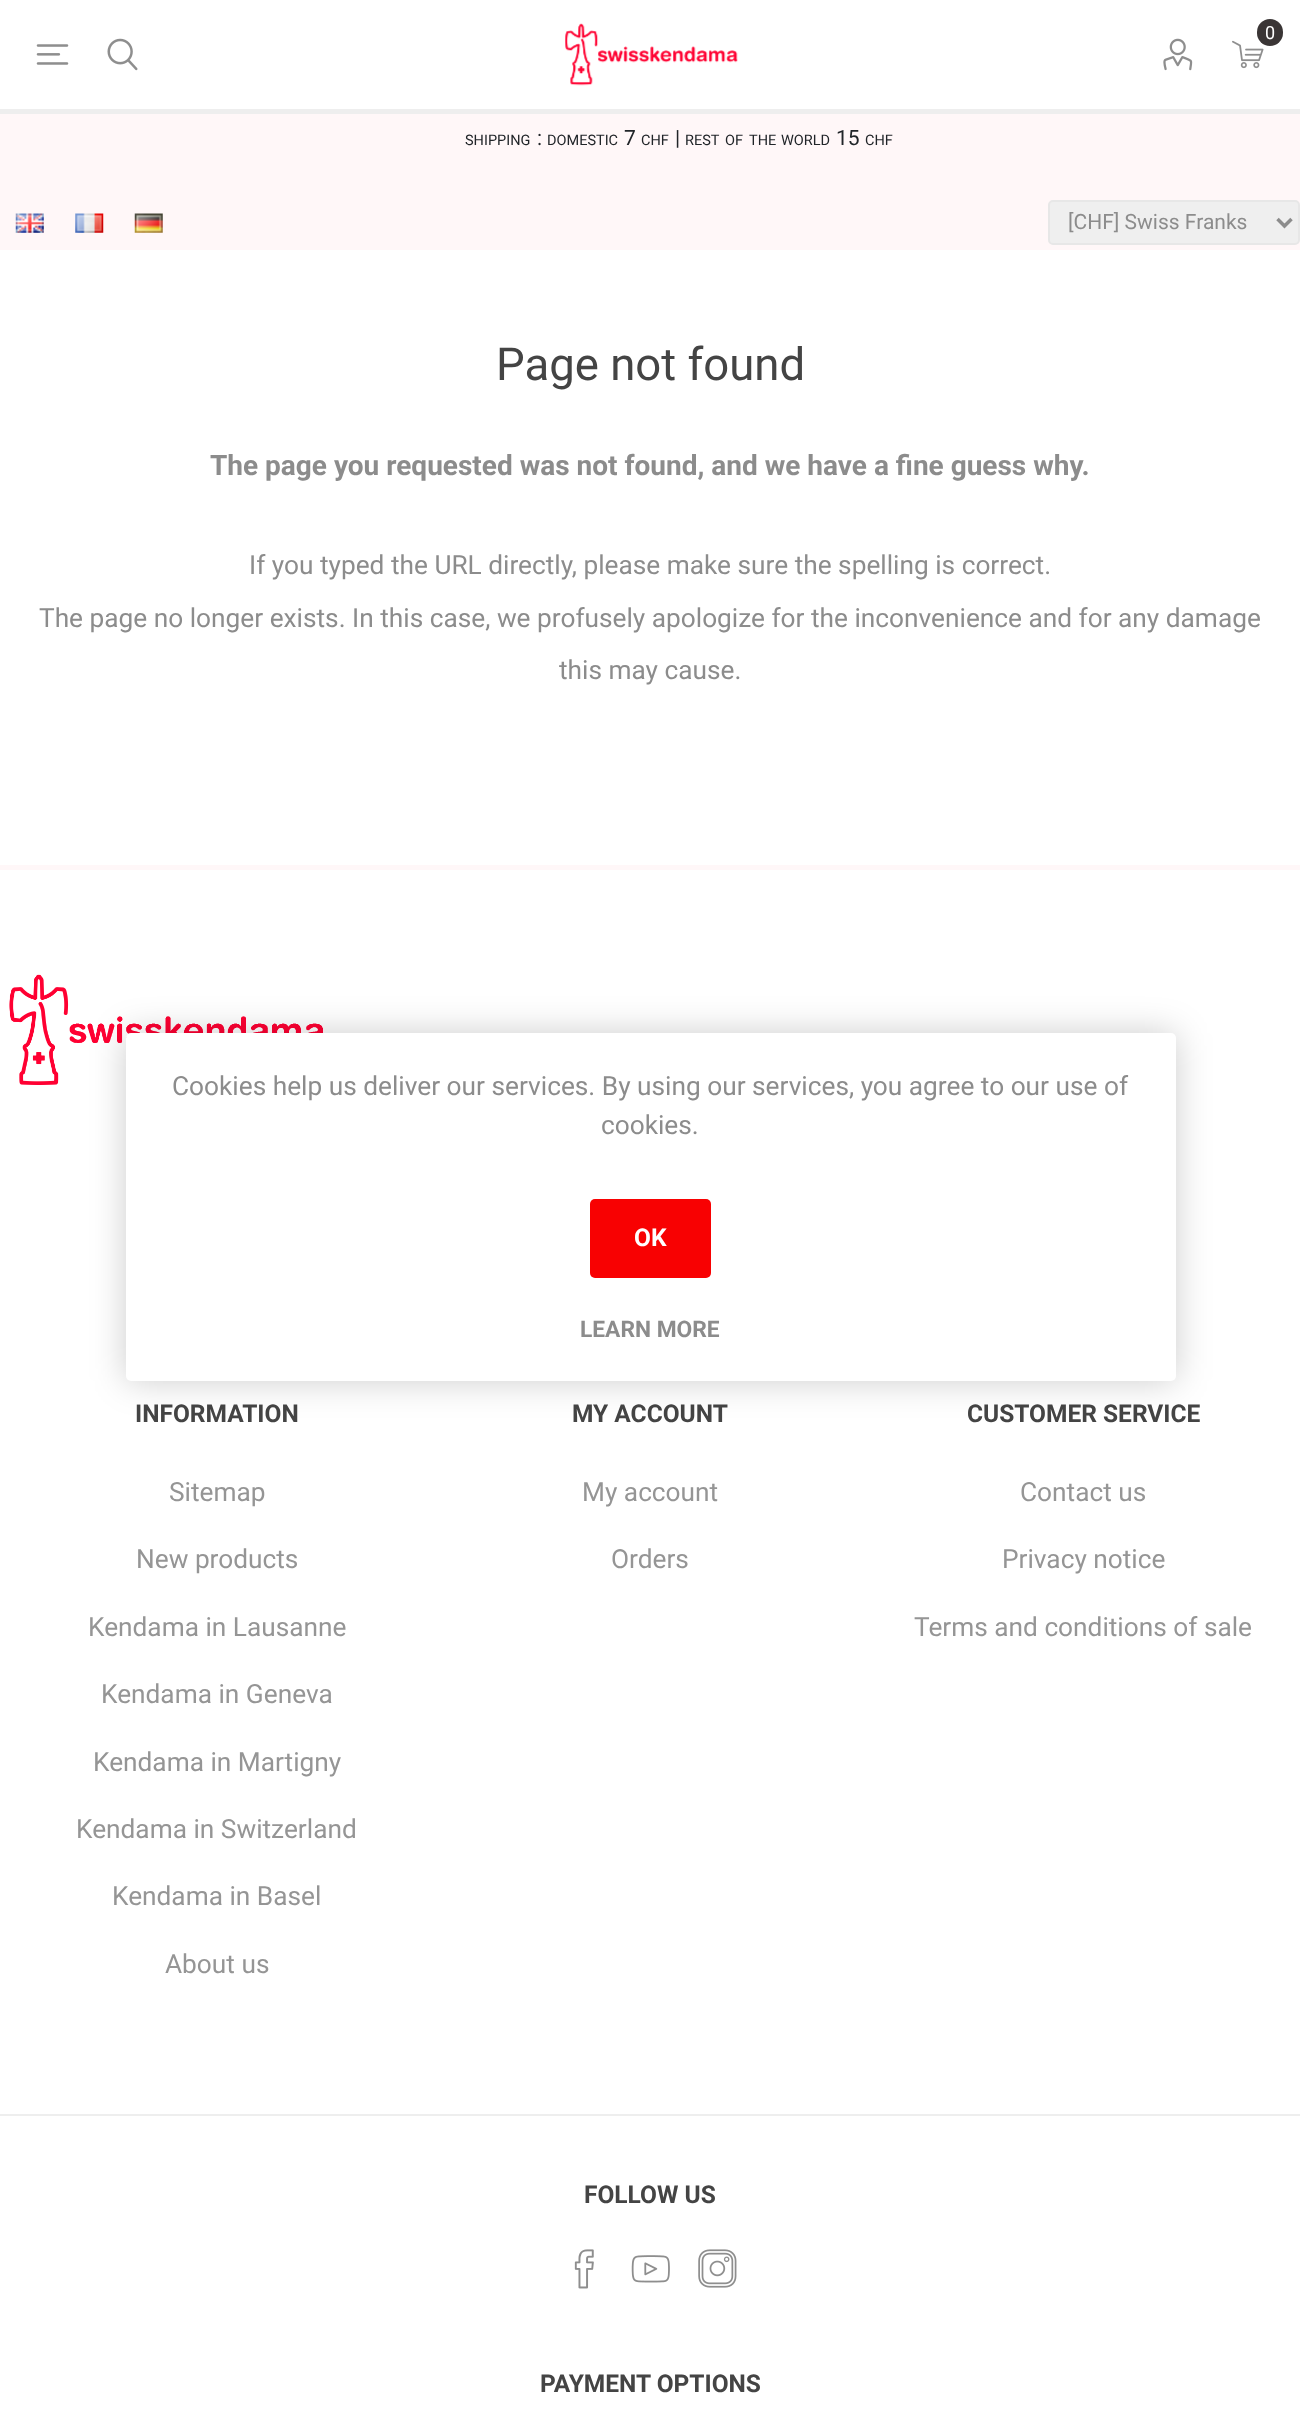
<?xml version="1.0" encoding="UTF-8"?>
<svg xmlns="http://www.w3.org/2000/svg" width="1300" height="2412">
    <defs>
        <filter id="blur1" x="-50%" y="-200%" width="200%" height="500%"><feGaussianBlur stdDeviation="17.5"/></filter>
    </defs>
    <rect width="100%" height="100%" fill="#FFFFFF"/>
    <rect x="0" y="109" width="1300" height="5" fill="#EEEEEE"/>
    <image x="565" y="23" width="173" height="63" href="img_01.png"/>
    <image x="1232" y="40" width="32" height="29" href="img_02.png"/>
    <rect x="1257" y="19" width="26" height="27" rx="13" fill="#3A3535"/>
    <text x="1265" y="39" font-family="Roboto" font-size="18" fill="#FFFFFF">0</text>
    <image x="36" y="44" width="33" height="21" href="img_03.png"/>
    <image x="107" y="38" width="31" height="33" href="img_04.png"/>
    <image x="1163" y="38" width="30" height="33" href="img_05.png"/>
    <rect x="0" y="114" width="1300" height="136" fill="#FFF7F8"/>
    <text x="465" y="145" font-family="Roboto" font-size="14.5" fill="#212529">SHIPPING</text>
    <text x="537" y="145" font-family="Roboto" font-size="21" fill="#212529">:</text>
    <text x="547" y="145" font-family="Roboto" font-size="14.5" fill="#212529">DOMESTIC</text>
    <text x="624" y="145" font-family="Roboto" font-size="21" fill="#212529">7</text>
    <text x="641" y="145" font-family="Roboto" font-size="14.5" fill="#212529">CHF</text>
    <text x="675" y="145" font-family="Roboto" font-size="21" fill="#212529">|</text>
    <text x="685" y="145" font-family="Roboto" font-size="14.5" fill="#212529">REST</text>
    <text x="725" y="145" font-family="Roboto" font-size="14.5" fill="#212529">OF</text>
    <text x="749" y="145" font-family="Roboto" font-size="14.5" fill="#212529">THE</text>
    <text x="781" y="145" font-family="Roboto" font-size="14.5" fill="#212529">WORLD</text>
    <text x="836" y="145" font-family="Roboto" font-size="21" fill="#212529">15</text>
    <text x="865" y="145" font-family="Roboto" font-size="14.5" fill="#212529">CHF</text>
    <image x="15" y="213" width="29" height="20" href="img_06.png"/>
    <image x="75" y="213" width="29" height="20" href="img_07.png"/>
    <image x="134" y="213" width="29" height="20" href="img_08.png"/>
    <rect x="1049" y="201" width="250" height="43" rx="4" fill="#EFEFEF" stroke="#E7E7E7" stroke-width="2"/>
    <path d="M 1277.5 219 L 1284.5 226 L 1291.5 219" fill="none" stroke="#8C8C8C" stroke-width="3.5"/>
    <text x="1068" y="229" font-family="Roboto" font-size="21" fill="#8C8C8C">[CHF] Swiss Franks</text>
    <text x="496" y="380" font-family="Roboto" font-size="45.5" fill="#444444">Page not found</text>
    <text x="210" y="475" font-family="Roboto" font-size="28" font-weight="700" fill="#8C8C8C">The page you requested was not found, and we have a fine guess why.</text>
    <text x="249" y="574" font-family="Roboto" font-size="26.25" fill="#8C8C8C">If you typed the URL directly, please make sure the spelling is correct.</text>
    <text x="39" y="627" font-family="Roboto" font-size="26.25" fill="#8C8C8C">The page no longer exists. In this case, we profusely apologize for the inconvenience and for any damage</text>
    <text x="559" y="679" font-family="Roboto" font-size="26.25" fill="#8C8C8C">this may cause.</text>
    <rect x="0" y="865" width="1300" height="5" fill="#FFF7F8"/>
    <image x="9" y="974" width="314" height="111" href="img_09.png"/>
    <text x="135" y="1422" font-family="Roboto" font-size="24.5" font-weight="700" fill="#444444">INFORMATION</text>
    <text x="169" y="1501" font-family="Roboto" font-size="26.25" fill="#959595">Sitemap</text>
    <text x="136" y="1568" font-family="Roboto" font-size="26.25" fill="#959595">New products</text>
    <text x="88" y="1636" font-family="Roboto" font-size="26.25" fill="#959595">Kendama in Lausanne</text>
    <text x="101" y="1703" font-family="Roboto" font-size="26.25" fill="#959595">Kendama in Geneva</text>
    <text x="93" y="1771" font-family="Roboto" font-size="26.25" fill="#959595">Kendama in Martigny</text>
    <text x="76" y="1838" font-family="Roboto" font-size="26.25" fill="#959595">Kendama in Switzerland</text>
    <text x="112" y="1905" font-family="Roboto" font-size="26.25" fill="#959595">Kendama in Basel</text>
    <text x="165" y="1973" font-family="Roboto" font-size="26.25" fill="#959595">About us</text>
    <text x="572" y="1422" font-family="Roboto" font-size="24.5" font-weight="700" fill="#444444">MY ACCOUNT</text>
    <text x="582" y="1501" font-family="Roboto" font-size="26.25" fill="#959595">My account</text>
    <text x="611" y="1568" font-family="Roboto" font-size="26.25" fill="#959595">Orders</text>
    <text x="967" y="1422" font-family="Roboto" font-size="24.5" font-weight="700" fill="#444444">CUSTOMER SERVICE</text>
    <text x="1020" y="1501" font-family="Roboto" font-size="26.25" fill="#959595">Contact us</text>
    <text x="1002" y="1568" font-family="Roboto" font-size="26.25" fill="#959595">Privacy notice</text>
    <text x="914" y="1636" font-family="Roboto" font-size="26.25" fill="#959595">Terms and conditions of sale</text>
    <rect x="0" y="2114" width="1300" height="2" fill="#EEEEEE"/>
    <text x="584" y="2203" font-family="Roboto" font-size="24.5" font-weight="700" fill="#444444">FOLLOW US</text>
    <image x="574" y="2249" width="20" height="40" href="img_10.png"/>
    <image x="631" y="2255" width="39" height="28" href="img_11.png"/>
    <image x="698" y="2249" width="39" height="39" href="img_12.png"/>
    <text x="540" y="2392" font-family="Roboto" font-size="24.5" font-weight="700" fill="#444444">PAYMENT OPTIONS</text>
    <rect x="126" y="1033" width="1050" height="348" rx="5" fill="#000000" fill-opacity="0.2" filter="url(#blur1)"/>
    <rect x="126" y="1033" width="1050" height="348" rx="5" fill="#FFFFFF"/>
    <text x="172" y="1095" font-family="Roboto" font-size="26.25" fill="#8C8C8C">Cookies help us deliver our services. By using our services, you agree to our use of</text>
    <text x="601" y="1134" font-family="Roboto" font-size="26.25" fill="#8C8C8C">cookies.</text>
    <rect x="590" y="1199" width="121" height="79" rx="5" fill="#F80102"/>
    <text x="634" y="1246" font-family="Roboto" font-size="24.5" font-weight="700" fill="#FFFFFF">OK</text>
    <text x="580" y="1337" font-family="Roboto" font-size="22.75" font-weight="700" fill="#8C8C8C">LEARN MORE</text>
</svg>
